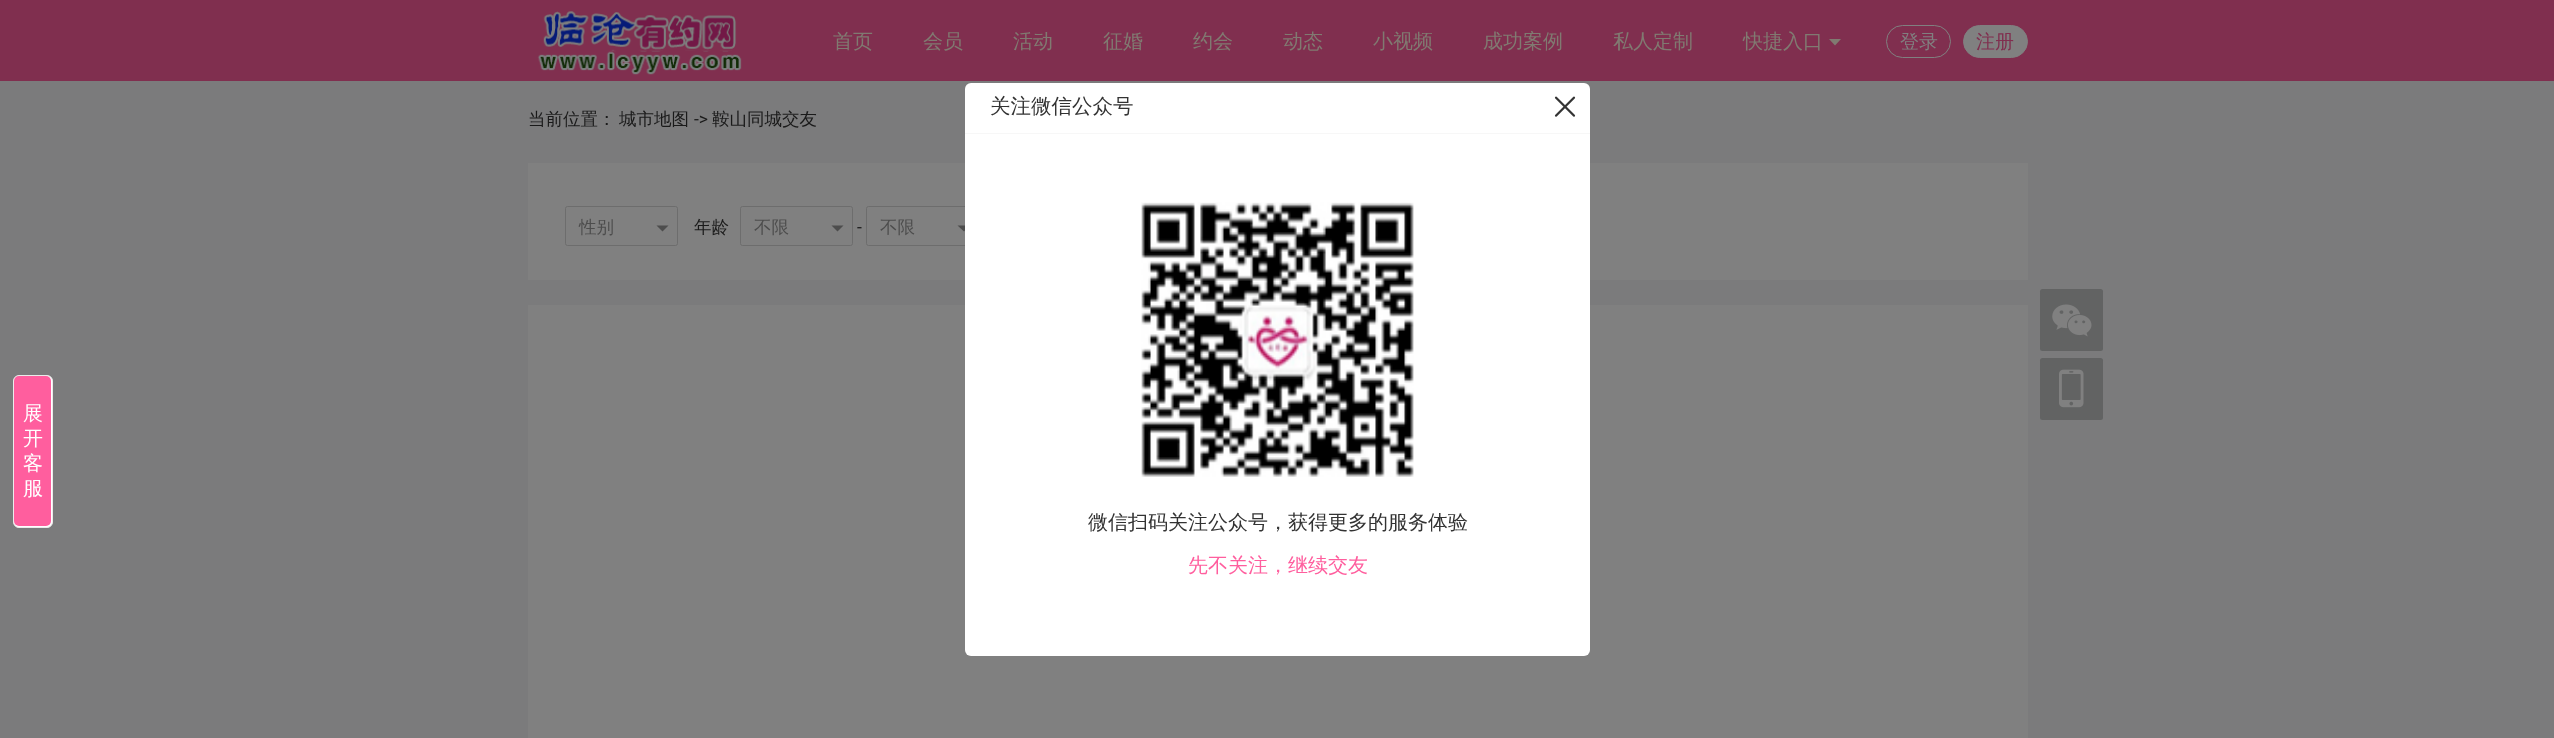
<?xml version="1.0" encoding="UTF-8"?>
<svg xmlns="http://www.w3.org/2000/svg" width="2554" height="738">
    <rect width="100%" height="100%" fill="#7B7B7C"/>
    <rect x="0" y="0" width="2554" height="81" fill="#802F4F"/>
    <image x="537" y="11" width="205" height="64" href="img_01.png"/>
    <text x="833" y="48" font-family="WenQuanYi Zen Hei" font-size="20" font-weight="500" fill="#807A71">首页</text>
    <text x="923" y="48" font-family="WenQuanYi Zen Hei" font-size="20" font-weight="500" fill="#807A71">会员</text>
    <text x="1013" y="48" font-family="WenQuanYi Zen Hei" font-size="20" font-weight="500" fill="#807A71">活动</text>
    <text x="1103" y="48" font-family="WenQuanYi Zen Hei" font-size="20" font-weight="500" fill="#807A71">征婚</text>
    <text x="1193" y="48" font-family="WenQuanYi Zen Hei" font-size="20" font-weight="500" fill="#807A71">约会</text>
    <text x="1283" y="48" font-family="WenQuanYi Zen Hei" font-size="20" font-weight="500" fill="#807A71">动态</text>
    <text x="1373" y="48" font-family="WenQuanYi Zen Hei" font-size="20" font-weight="500" fill="#807A71">小视频</text>
    <text x="1483" y="48" font-family="WenQuanYi Zen Hei" font-size="20" font-weight="500" fill="#807A71">成功案例</text>
    <text x="1613" y="48" font-family="WenQuanYi Zen Hei" font-size="20" font-weight="500" fill="#807A71">私人定制</text>
    <text x="1743" y="48" font-family="WenQuanYi Zen Hei" font-size="20" font-weight="500" fill="#807A71">快捷入口</text>
    <path d="M 1841 39 L 1835 45.5 L 1829 39 Z" fill="#807A71"/>
    <rect x="1886.5" y="25.5" width="64" height="32" rx="16" fill="none" stroke="#808080"/>
    <text x="1900" y="48" font-family="WenQuanYi Zen Hei" font-size="19" font-weight="500" fill="#808080">登录</text>
    <rect x="1963.5" y="25.5" width="64" height="32" rx="16" fill="#808080" stroke="#808080"/>
    <text x="1976" y="48" font-family="WenQuanYi Zen Hei" font-size="19" font-weight="500" fill="#802F4F">注册</text>
    <text x="528" y="125" font-family="WenQuanYi Zen Hei" font-size="17.5" font-weight="500" fill="#1A1A1A">当前位置：</text>
    <text x="619" y="125" font-family="WenQuanYi Zen Hei" font-size="17.5" font-weight="500" fill="#1A1A1A">城市地图</text>
    <text x="694" y="125" font-family="Roboto" font-size="17.5" fill="#1A1A1A">-&gt;</text>
    <text x="712" y="125" font-family="WenQuanYi Zen Hei" font-size="17.5" font-weight="500" fill="#1A1A1A">鞍山同城交友</text>
    <rect x="528" y="163" width="1500" height="117" fill="#808080"/>
    <rect x="866.5" y="206.5" width="112" height="39" rx="2" fill="none" stroke="#6D6D6D"/>
    <path d="M 970 225.5 L 964 231.5 L 957.5 225.5 Z" fill="#4D4D4D"/>
    <rect x="528" y="305" width="1500" height="433" fill="#808080"/>
    <rect x="965" y="83" width="625" height="573" rx="6" fill="#FFFFFF"/>
    <rect x="965" y="133" width="625" height="1" fill="#F7F7F7"/>
    <text x="990" y="113" font-family="WenQuanYi Zen Hei" font-size="20.5" font-weight="500" fill="#333333">关注微信公众号</text>
    <image x="1554" y="96" width="22" height="21" href="img_02.png"/>
    <image x="1141" y="202" width="273" height="275" href="img_03.png"/>
    <text x="1088" y="529" font-family="WenQuanYi Zen Hei" font-size="20" font-weight="500" fill="#333333">微信扫码关注公众号，获得更多的服务体验</text>
    <text x="1188" y="572" font-family="WenQuanYi Zen Hei" font-size="20" font-weight="500" fill="#FF5E9E">先不关注，继续交友</text>
    <rect x="565.5" y="206.5" width="112" height="39" rx="2" fill="none" stroke="#6D6D6D"/>
    <text x="579" y="233" font-family="WenQuanYi Zen Hei" font-size="17.5" font-weight="500" fill="#4D4D4D">性别</text>
    <path d="M 668.5 225.5 L 662.5 231.5 L 656.5 225.5 Z" fill="#4D4D4D"/>
    <text x="694" y="233" font-family="WenQuanYi Zen Hei" font-size="17.5" font-weight="500" fill="#1A1A1A">年龄</text>
    <rect x="740.5" y="206.5" width="112" height="39" rx="2" fill="none" stroke="#6D6D6D"/>
    <text x="754" y="233" font-family="WenQuanYi Zen Hei" font-size="17.5" font-weight="500" fill="#4D4D4D">不限</text>
    <path d="M 843.5 225.5 L 837.5 231.5 L 831.5 225.5 Z" fill="#4D4D4D"/>
    <text x="857" y="233" font-family="Roboto" font-size="17.5" fill="#1A1A1A">-</text>
    <text x="880" y="233" font-family="WenQuanYi Zen Hei" font-size="17.5" font-weight="500" fill="#4D4D4D">不限</text>
    <rect x="13.5" y="375.5" width="39" height="152" rx="5.5" fill="#FFFFFF" stroke="#EBEBEB"/>
    <rect x="14" y="376" width="37" height="150" rx="5" fill="#FF5E9E"/>
    <text font-family="WenQuanYi Zen Hei" font-size="20" font-weight="500" fill="#FFFFFF">
        <tspan x="23" y="420">展</tspan>
        <tspan x="23" y="445">开</tspan>
        <tspan x="23" y="470">客</tspan>
        <tspan x="23" y="495">服</tspan>
    </text>
    <rect x="2040" y="289" width="63" height="62" rx="2.5" fill="#626363"/>
    <image x="2052" y="304" width="40" height="33" href="img_04.png"/>
    <rect x="2040" y="358" width="63" height="62" rx="2.5" fill="#626363"/>
    <image x="2059" y="369" width="25" height="39" href="img_05.png"/>
</svg>
